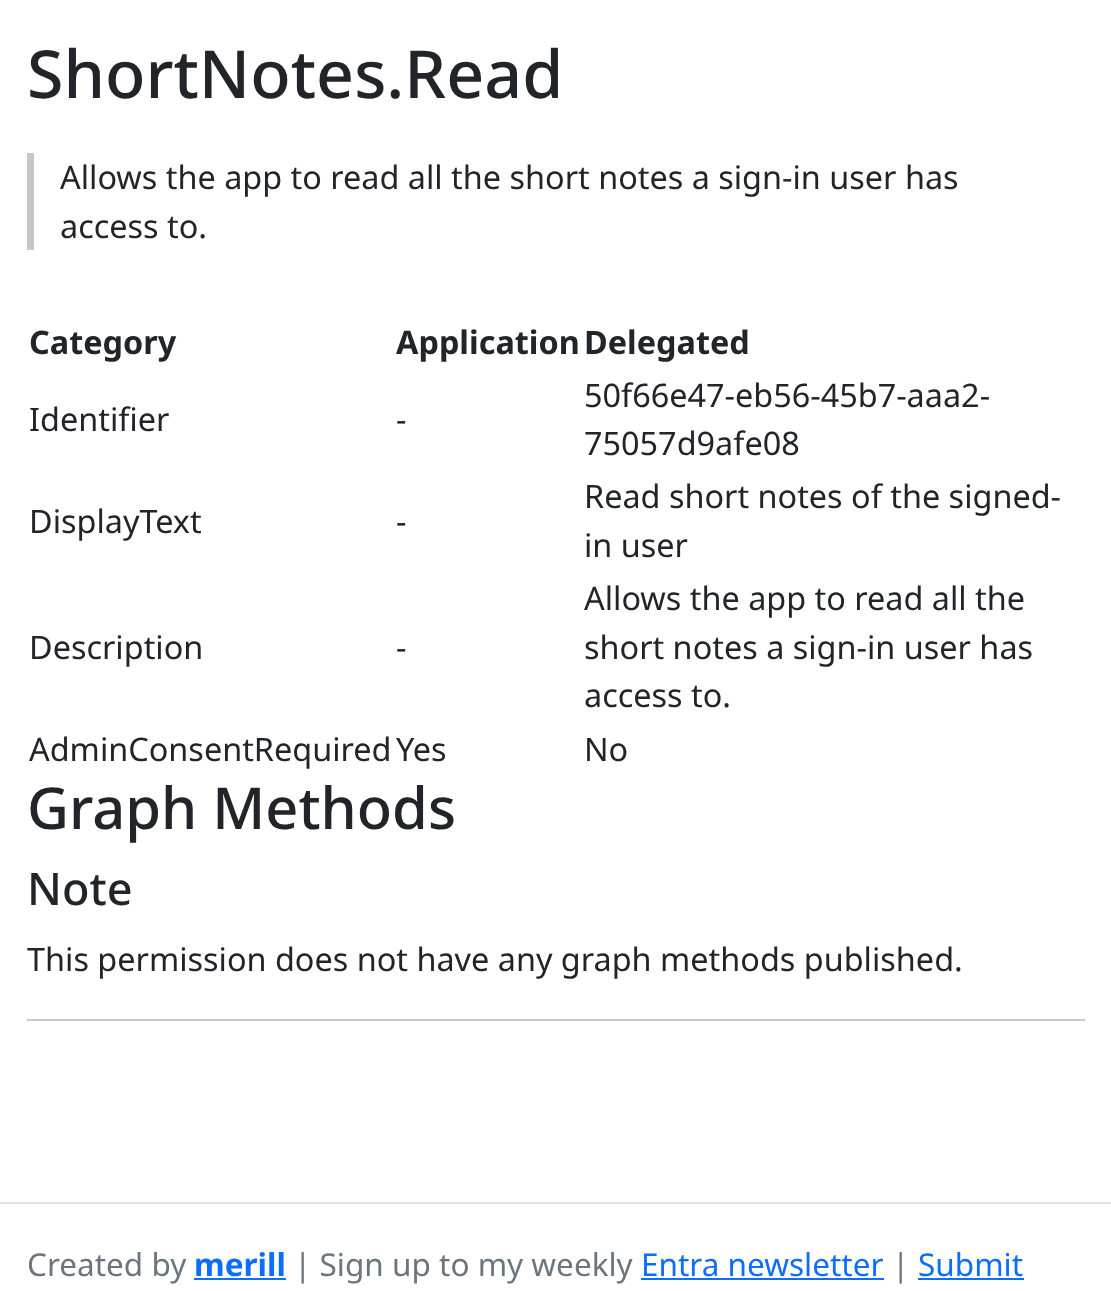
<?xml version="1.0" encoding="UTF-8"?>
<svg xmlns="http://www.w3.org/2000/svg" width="1111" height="1291">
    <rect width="100%" height="100%" fill="#FFFFFF"/>
    <text x="27" y="98" font-family="Noto Sans" font-size="66.25" font-weight="500" fill="#212529">ShortNotes.Read</text>
    <rect x="27" y="153" width="7" height="97" fill="#C4C8CB"/>
    <text font-family="Noto Sans" font-size="32.4" fill="#212529">
        <tspan x="60" y="189">Allows the app to read all the short notes a sign-in user has</tspan>
        <tspan x="60" y="238">access to.</tspan>
    </text>
    <text x="29" y="354" font-family="Noto Sans" font-size="32.4" font-weight="700" fill="#212529">Category</text>
    <text x="396" y="354" font-family="Noto Sans" font-size="32.4" font-weight="700" fill="#212529">Application</text>
    <text x="584" y="354" font-family="Noto Sans" font-size="32.4" font-weight="700" fill="#212529">Delegated</text>
    <text x="29" y="431" font-family="Noto Sans" font-size="32.4" fill="#212529">Identifier</text>
    <text x="396" y="431" font-family="Noto Sans" font-size="32.4" fill="#212529">-</text>
    <text font-family="Noto Sans" font-size="32.4" fill="#212529">
        <tspan x="584" y="407">50f66e47-eb56-45b7-aaa2-</tspan>
        <tspan x="584" y="455">75057d9afe08</tspan>
    </text>
    <text x="29" y="533" font-family="Noto Sans" font-size="32.4" fill="#212529">DisplayText</text>
    <text x="396" y="533" font-family="Noto Sans" font-size="32.4" fill="#212529">-</text>
    <text font-family="Noto Sans" font-size="32.4" fill="#212529">
        <tspan x="584" y="508">Read short notes of the signed-</tspan>
        <tspan x="584" y="557">in user</tspan>
    </text>
    <text x="29" y="659" font-family="Noto Sans" font-size="32.4" fill="#212529">Description</text>
    <text x="396" y="659" font-family="Noto Sans" font-size="32.4" fill="#212529">-</text>
    <text font-family="Noto Sans" font-size="32.4" fill="#212529">
        <tspan x="584" y="610">Allows the app to read all the</tspan>
        <tspan x="584" y="659">short notes a sign-in user has</tspan>
        <tspan x="584" y="707">access to.</tspan>
    </text>
    <text x="29" y="761" font-family="Noto Sans" font-size="32.4" fill="#212529">AdminConsentRequired</text>
    <text x="396" y="761" font-family="Noto Sans" font-size="32.4" fill="#212529">Yes</text>
    <text x="584" y="761" font-family="Noto Sans" font-size="32.4" fill="#212529">No</text>
    <text x="27" y="829" font-family="Noto Sans" font-size="57.75" font-weight="500" fill="#212529">Graph Methods</text>
    <text x="27" y="905" font-family="Noto Sans" font-size="45" font-weight="500" fill="#212529">Note</text>
    <text x="27" y="971" font-family="Noto Sans" font-size="32.4" fill="#212529">This permission does not have any graph methods published.</text>
    <rect x="27" y="1019" width="1058" height="2" fill="#C8C9CA"/>
    <rect x="0" y="1202" width="1111" height="2" fill="#DEE2E6"/>
    <text x="27" y="1276" font-family="Noto Sans" font-size="31.5" fill="#6C757D">Created by</text>
    <rect x="194" y="1278" width="92" height="2" fill="#0D6EFD"/>
    <text x="194" y="1276" font-family="Noto Sans" font-size="31.5" font-weight="700" fill="#0D6EFD">merill</text>
    <text x="294" y="1276" font-family="Noto Sans" font-size="31.5" fill="#6C757D">| Sign up to my weekly</text>
    <text x="641" y="1276" font-family="Noto Sans" font-size="31.5" fill="#0D6EFD">Entra newsletter</text>
    <rect x="641" y="1278" width="243" height="2" fill="#0D6EFD"/>
    <text x="892" y="1276" font-family="Noto Sans" font-size="31.5" fill="#6C757D">|</text>
    <text x="918" y="1276" font-family="Noto Sans" font-size="31.5" fill="#0D6EFD">Submit</text>
    <rect x="918" y="1278" width="106" height="2" fill="#0D6EFD"/>
</svg>
